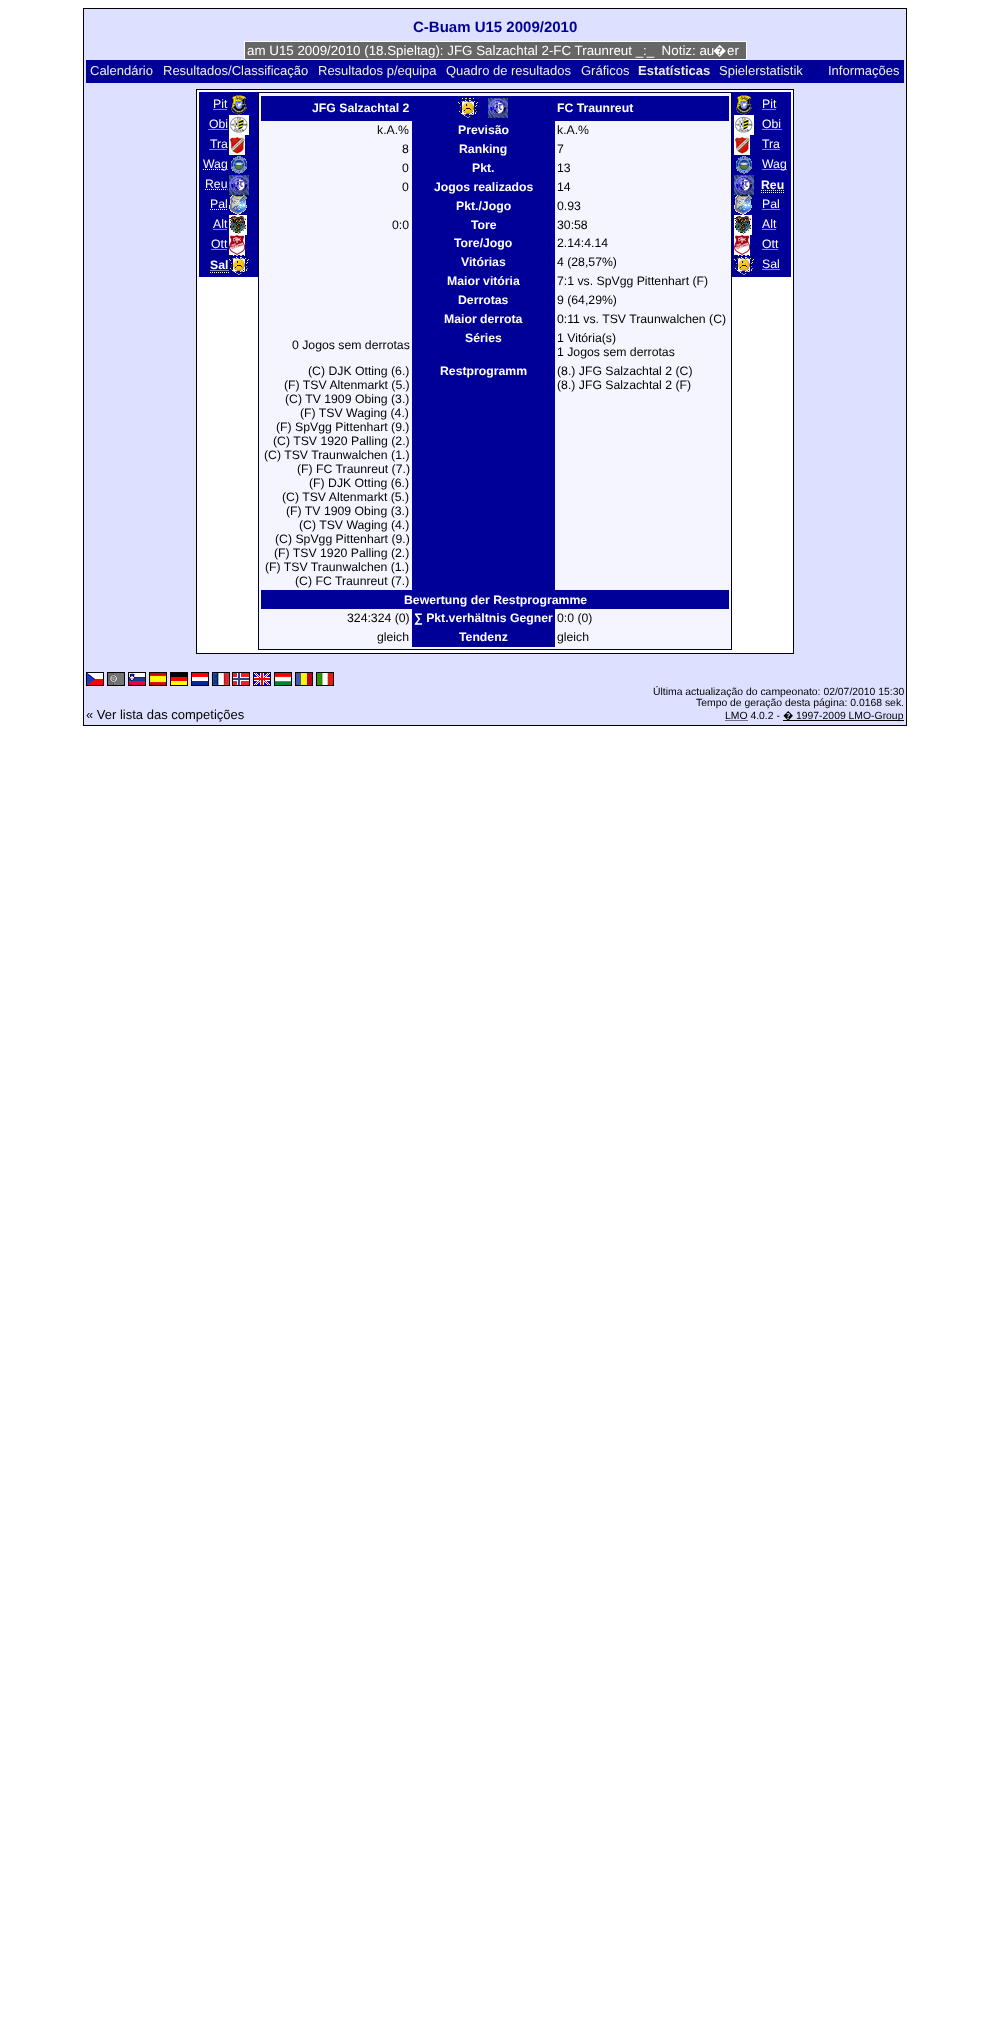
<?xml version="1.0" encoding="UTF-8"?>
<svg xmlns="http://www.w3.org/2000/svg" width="990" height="2033">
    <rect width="100%" height="100%" fill="#FFFFFF"/>
    <rect x="83.5" y="8.5" width="823" height="717" fill="#DDE0FF" stroke="#000000"/>
    <text x="413" y="32" font-family="Liberation Sans" font-size="15" font-weight="700" fill="#000099">C-Buam U15 2009/2010</text>
    <rect x="244.5" y="41.5" width="502" height="18" fill="#666666" stroke="#FFFFFF"/>
    <text x="247" y="55" font-family="Liberation Sans" font-size="13.35" fill="#FFFFFF" xml:space="preserve">am U15 2009/2010 (18.Spieltag): JFG Salzachtal 2-FC Traunreut _:_  Notiz: au</text>
    <text x="713" y="55" font-family="Noto Sans" font-size="13.35" fill="#FFFFFF">�</text>
    <text x="727" y="55" font-family="Liberation Sans" font-size="13.35" fill="#FFFFFF">er</text>
    <rect x="86" y="60" width="818" height="23" fill="#000099"/>
    <text x="90" y="75" font-family="Liberation Sans" font-size="13" fill="#EEEEEE">Calendário</text>
    <text x="163" y="75" font-family="Liberation Sans" font-size="13" fill="#EEEEEE">Resultados/Classificação</text>
    <text x="318" y="75" font-family="Liberation Sans" font-size="13" fill="#EEEEEE">Resultados p/equipa</text>
    <text x="446" y="75" font-family="Liberation Sans" font-size="13" fill="#EEEEEE">Quadro de resultados</text>
    <text x="581" y="75" font-family="Liberation Sans" font-size="13" fill="#EEEEEE">Gráficos</text>
    <text x="638" y="75" font-family="Liberation Sans" font-size="13" font-weight="700" fill="#EEEEEE">Estatísticas</text>
    <text x="719" y="75" font-family="Liberation Sans" font-size="13" fill="#EEEEEE">Spielerstatistik</text>
    <text x="828" y="75" font-family="Liberation Sans" font-size="13" fill="#EEEEEE">Informações</text>
    <rect x="196.5" y="89.5" width="597" height="564" fill="#FFFFFF" stroke="#000000"/>
    <rect x="199" y="92" width="59" height="185" fill="#000099"/>
    <text x="213" y="108" font-family="Liberation Sans" font-size="12.25" fill="#FFFFFF">Pit</text>
    <path d="M 213.5 109.5 H 227.5" fill="none" stroke="#FFFFFF" stroke-dasharray="1 1"/>
    <image x="231" y="95" width="16" height="20" href="img_01.png"/>
    <text x="209" y="128" font-family="Liberation Sans" font-size="12.25" fill="#FFFFFF">Obi</text>
    <path d="M 208.5 129.5 H 227.5" fill="none" stroke="#FFFFFF" stroke-dasharray="1 1"/>
    <image x="229" y="115" width="20" height="20" href="img_02.png"/>
    <text x="210" y="148" font-family="Liberation Sans" font-size="12.25" fill="#FFFFFF">Tra</text>
    <path d="M 209.5 149.5 H 227.5" fill="none" stroke="#FFFFFF" stroke-dasharray="1 1"/>
    <image x="229" y="135" width="16" height="20" href="img_03.png"/>
    <path d="M 203 169.5 H 227.5" fill="none" stroke="#FFFFFF" stroke-dasharray="1 1"/>
    <text x="203" y="168" font-family="Liberation Sans" font-size="12.25" fill="#FFFFFF">Wag</text>
    <image x="231" y="156" width="16" height="18" href="img_04.png"/>
    <text x="205" y="188" font-family="Liberation Sans" font-size="12.25" fill="#FFFFFF">Reu</text>
    <path d="M 205 189.5 H 227.5" fill="none" stroke="#FFFFFF" stroke-dasharray="1 1"/>
    <image x="229" y="175" width="20" height="20" href="img_05.png"/>
    <text x="210" y="208" font-family="Liberation Sans" font-size="12.25" fill="#FFFFFF">Pal</text>
    <path d="M 210 209.5 H 227.5" fill="none" stroke="#FFFFFF" stroke-dasharray="1 1"/>
    <image x="229" y="195" width="18" height="20" href="img_06.png"/>
    <text x="213" y="228" font-family="Liberation Sans" font-size="12.25" fill="#FFFFFF">Alt</text>
    <path d="M 213.5 229.5 H 227.5" fill="none" stroke="#FFFFFF" stroke-dasharray="1 1"/>
    <image x="229" y="215" width="18" height="20" href="img_07.png"/>
    <text x="211" y="248" font-family="Liberation Sans" font-size="12.25" fill="#FFFFFF">Ott</text>
    <path d="M 211.5 249.5 H 227.5" fill="none" stroke="#FFFFFF" stroke-dasharray="1 1"/>
    <image x="229" y="235" width="16" height="20" href="img_08.png"/>
    <text x="210" y="269" font-family="Liberation Sans" font-size="12.25" font-weight="700" fill="#FFFFFF">Sal</text>
    <path d="M 210 272.5 H 229 M 210.5 270.5 H 229" fill="none" stroke="#FFFFFF" stroke-dasharray="1 1"/>
    <image x="229" y="255" width="20" height="20" href="img_09.png"/>
    <rect x="258.5" y="92.5" width="473" height="557" fill="#F5F5FF" stroke="#000033"/>
    <rect x="261" y="96" width="468" height="25" fill="#000099"/>
    <text x="312" y="112" font-family="Liberation Sans" font-size="12.25" font-weight="700" fill="#FFFFFF">JFG Salzachtal 2</text>
    <image x="458" y="98" width="20" height="20" href="img_09.png"/>
    <image x="488" y="98" width="20" height="20" href="img_05.png"/>
    <text x="557" y="112" font-family="Liberation Sans" font-size="12.25" font-weight="700" fill="#FFFFFF">FC Traunreut</text>
    <text x="377" y="134" font-family="Liberation Sans" font-size="12.25" fill="#000000">k.A.%</text>
    <rect x="412" y="121" width="143" height="469" fill="#000099"/>
    <text x="458" y="134" font-family="Liberation Sans" font-size="12.25" font-weight="700" fill="#FFFFFF">Previsão</text>
    <text x="557" y="134" font-family="Liberation Sans" font-size="12.25" fill="#000000">k.A.%</text>
    <text x="402" y="153" font-family="Liberation Sans" font-size="12.25" fill="#000000">8</text>
    <text x="459" y="153" font-family="Liberation Sans" font-size="12.25" font-weight="700" fill="#FFFFFF">Ranking</text>
    <text x="557" y="153" font-family="Liberation Sans" font-size="12.25" fill="#000000">7</text>
    <text x="402" y="172" font-family="Liberation Sans" font-size="12.25" fill="#000000">0</text>
    <text x="472" y="172" font-family="Liberation Sans" font-size="12.25" font-weight="700" fill="#FFFFFF">Pkt.</text>
    <text x="557" y="172" font-family="Liberation Sans" font-size="12.25" fill="#000000">13</text>
    <text x="402" y="191" font-family="Liberation Sans" font-size="12.25" fill="#000000">0</text>
    <text x="434" y="191" font-family="Liberation Sans" font-size="12.25" font-weight="700" fill="#FFFFFF">Jogos realizados</text>
    <text x="557" y="191" font-family="Liberation Sans" font-size="12.25" fill="#000000">14</text>
    <text x="456" y="210" font-family="Liberation Sans" font-size="12.25" font-weight="700" fill="#FFFFFF">Pkt./Jogo</text>
    <text x="557" y="210" font-family="Liberation Sans" font-size="12.25" fill="#000000">0.93</text>
    <text x="392" y="229" font-family="Liberation Sans" font-size="12.25" fill="#000000">0:0</text>
    <text x="471" y="229" font-family="Liberation Sans" font-size="12.25" font-weight="700" fill="#FFFFFF">Tore</text>
    <text x="557" y="229" font-family="Liberation Sans" font-size="12.25" fill="#000000">30:58</text>
    <text x="454" y="247" font-family="Liberation Sans" font-size="12.25" font-weight="700" fill="#FFFFFF">Tore/Jogo</text>
    <text x="557" y="247" font-family="Liberation Sans" font-size="12.25" fill="#000000">2.14:4.14</text>
    <text x="461" y="266" font-family="Liberation Sans" font-size="12.25" font-weight="700" fill="#FFFFFF">Vitórias</text>
    <text x="557" y="266" font-family="Liberation Sans" font-size="12.25" fill="#000000">4 (28,57%)</text>
    <text x="447" y="285" font-family="Liberation Sans" font-size="12.25" font-weight="700" fill="#FFFFFF">Maior vitória</text>
    <text x="557" y="285" font-family="Liberation Sans" font-size="12.25" fill="#000000">7:1 vs. SpVgg Pittenhart (F)</text>
    <text x="458" y="304" font-family="Liberation Sans" font-size="12.25" font-weight="700" fill="#FFFFFF">Derrotas</text>
    <text x="557" y="304" font-family="Liberation Sans" font-size="12.25" fill="#000000">9 (64,29%)</text>
    <text x="444" y="323" font-family="Liberation Sans" font-size="12.25" font-weight="700" fill="#FFFFFF">Maior derrota</text>
    <text x="557" y="323" font-family="Liberation Sans" font-size="12.25" fill="#000000">0:11 vs. TSV Traunwalchen (C)</text>
    <text x="292" y="349" font-family="Liberation Sans" font-size="12.25" fill="#000000">0 Jogos sem derrotas</text>
    <text x="465" y="342" font-family="Liberation Sans" font-size="12.25" font-weight="700" fill="#FFFFFF">Séries</text>
    <text font-family="Liberation Sans" font-size="12.25" fill="#000000">
        <tspan x="557" y="342">1 Vitória(s)</tspan>
        <tspan x="557" y="356">1 Jogos sem derrotas</tspan>
    </text>
    <text x="308" y="375" font-family="Liberation Sans" font-size="12.25" fill="#000000">(C) DJK Otting (6.)</text>
    <text x="284" y="389" font-family="Liberation Sans" font-size="12.25" fill="#000000">(F) TSV Altenmarkt (5.)</text>
    <text x="285" y="403" font-family="Liberation Sans" font-size="12.25" fill="#000000">(C) TV 1909 Obing (3.)</text>
    <text x="300" y="417" font-family="Liberation Sans" font-size="12.25" fill="#000000">(F) TSV Waging (4.)</text>
    <text x="276" y="431" font-family="Liberation Sans" font-size="12.25" fill="#000000">(F) SpVgg Pittenhart (9.)</text>
    <text x="273" y="445" font-family="Liberation Sans" font-size="12.25" fill="#000000">(C) TSV 1920 Palling (2.)</text>
    <text x="264" y="459" font-family="Liberation Sans" font-size="12.25" fill="#000000">(C) TSV Traunwalchen (1.)</text>
    <text x="297" y="473" font-family="Liberation Sans" font-size="12.25" fill="#000000">(F) FC Traunreut (7.)</text>
    <text x="309" y="487" font-family="Liberation Sans" font-size="12.25" fill="#000000">(F) DJK Otting (6.)</text>
    <text x="282" y="501" font-family="Liberation Sans" font-size="12.25" fill="#000000">(C) TSV Altenmarkt (5.)</text>
    <text x="286" y="515" font-family="Liberation Sans" font-size="12.25" fill="#000000">(F) TV 1909 Obing (3.)</text>
    <text x="299" y="529" font-family="Liberation Sans" font-size="12.25" fill="#000000">(C) TSV Waging (4.)</text>
    <text x="275" y="543" font-family="Liberation Sans" font-size="12.25" fill="#000000">(C) SpVgg Pittenhart (9.)</text>
    <text x="274" y="557" font-family="Liberation Sans" font-size="12.25" fill="#000000">(F) TSV 1920 Palling (2.)</text>
    <text x="265" y="571" font-family="Liberation Sans" font-size="12.25" fill="#000000">(F) TSV Traunwalchen (1.)</text>
    <text x="295" y="585" font-family="Liberation Sans" font-size="12.25" fill="#000000">(C) FC Traunreut (7.)</text>
    <text x="440" y="375" font-family="Liberation Sans" font-size="12.25" font-weight="700" fill="#FFFFFF">Restprogramm</text>
    <text font-family="Liberation Sans" font-size="12.25" fill="#000000">
        <tspan x="557" y="375">(8.) JFG Salzachtal 2 (C)</tspan>
        <tspan x="557" y="389">(8.) JFG Salzachtal 2 (F)</tspan>
    </text>
    <rect x="261" y="590" width="468" height="19" fill="#000099"/>
    <text x="404" y="604" font-family="Liberation Sans" font-size="12.25" font-weight="700" fill="#FFFFFF">Bewertung der Restprogramme</text>
    <text x="347" y="622" font-family="Liberation Sans" font-size="12.25" fill="#000000">324:324 (0)</text>
    <rect x="412" y="609" width="143" height="38" fill="#000099"/>
    <text x="414" y="622" font-family="Liberation Sans" font-size="12.25" font-weight="700" fill="#FFFFFF">∑ Pkt.verhältnis Gegner</text>
    <text x="557" y="622" font-family="Liberation Sans" font-size="12.25" fill="#000000">0:0 (0)</text>
    <text x="377" y="641" font-family="Liberation Sans" font-size="12.25" fill="#000000">gleich</text>
    <text x="459" y="641" font-family="Liberation Sans" font-size="12.25" font-weight="700" fill="#FFFFFF">Tendenz</text>
    <text x="557" y="641" font-family="Liberation Sans" font-size="12.25" fill="#000000">gleich</text>
    <rect x="732" y="92" width="59" height="185" fill="#000099"/>
    <image x="736" y="95" width="16" height="20" href="img_01.png"/>
    <text x="762" y="108" font-family="Liberation Sans" font-size="12.25" fill="#FFFFFF">Pit</text>
    <path d="M 762.5 109.5 H 776.5" fill="none" stroke="#FFFFFF" stroke-dasharray="1 1"/>
    <image x="734" y="115" width="20" height="20" href="img_02.png"/>
    <text x="762" y="128" font-family="Liberation Sans" font-size="12.25" fill="#FFFFFF">Obi</text>
    <path d="M 762.5 129.5 H 781.5" fill="none" stroke="#FFFFFF" stroke-dasharray="1 1"/>
    <image x="734" y="135" width="16" height="20" href="img_03.png"/>
    <text x="762" y="148" font-family="Liberation Sans" font-size="12.25" fill="#FFFFFF">Tra</text>
    <path d="M 762.5 149.5 H 780.5" fill="none" stroke="#FFFFFF" stroke-dasharray="1 1"/>
    <image x="736" y="156" width="16" height="18" href="img_04.png"/>
    <path d="M 762.5 169.5 H 787" fill="none" stroke="#FFFFFF" stroke-dasharray="1 1"/>
    <text x="762" y="168" font-family="Liberation Sans" font-size="12.25" fill="#FFFFFF">Wag</text>
    <image x="734" y="175" width="20" height="20" href="img_05.png"/>
    <text x="761" y="189" font-family="Liberation Sans" font-size="12.25" font-weight="700" fill="#FFFFFF">Reu</text>
    <path d="M 761 192.5 H 784 M 761 190.5 H 784.5" fill="none" stroke="#FFFFFF" stroke-dasharray="1 1"/>
    <image x="734" y="195" width="18" height="20" href="img_06.png"/>
    <text x="762" y="208" font-family="Liberation Sans" font-size="12.25" fill="#FFFFFF">Pal</text>
    <path d="M 762.5 209.5 H 780" fill="none" stroke="#FFFFFF" stroke-dasharray="1 1"/>
    <image x="734" y="215" width="18" height="20" href="img_07.png"/>
    <text x="762" y="228" font-family="Liberation Sans" font-size="12.25" fill="#FFFFFF">Alt</text>
    <path d="M 762.5 229.5 H 776.5" fill="none" stroke="#FFFFFF" stroke-dasharray="1 1"/>
    <image x="734" y="235" width="16" height="20" href="img_08.png"/>
    <text x="762" y="248" font-family="Liberation Sans" font-size="12.25" fill="#FFFFFF">Ott</text>
    <path d="M 762.5 249.5 H 778.5" fill="none" stroke="#FFFFFF" stroke-dasharray="1 1"/>
    <image x="734" y="255" width="20" height="20" href="img_09.png"/>
    <text x="762" y="268" font-family="Liberation Sans" font-size="12.25" fill="#FFFFFF">Sal</text>
    <path d="M 762.5 269.5 H 780" fill="none" stroke="#FFFFFF" stroke-dasharray="1 1"/>
    <rect x="86.5" y="672.5" width="17" height="13" fill="none" stroke="#000000"/>
    <rect x="107.5" y="672.5" width="17" height="13" fill="none" stroke="#000000"/>
    <rect x="128.5" y="672.5" width="17" height="13" fill="none" stroke="#000000"/>
    <rect x="149.5" y="672.5" width="17" height="13" fill="none" stroke="#000000"/>
    <rect x="170.5" y="672.5" width="17" height="13" fill="none" stroke="#000000"/>
    <rect x="191.5" y="672.5" width="17" height="13" fill="none" stroke="#000000"/>
    <rect x="212.5" y="672.5" width="17" height="13" fill="none" stroke="#000000"/>
    <rect x="232.5" y="672.5" width="17" height="13" fill="none" stroke="#000000"/>
    <rect x="253.5" y="672.5" width="17" height="13" fill="none" stroke="#000000"/>
    <rect x="274.5" y="672.5" width="17" height="13" fill="none" stroke="#000000"/>
    <rect x="295.5" y="672.5" width="17" height="13" fill="none" stroke="#000000"/>
    <rect x="316.5" y="672.5" width="17" height="13" fill="none" stroke="#000000"/>
    <image x="87" y="673" width="16" height="12" href="img_10.png"/>
    <image x="108" y="673" width="16" height="12" href="img_11.png"/>
    <image x="129" y="673" width="16" height="12" href="img_12.png"/>
    <image x="150" y="673" width="16" height="12" href="img_13.png"/>
    <image x="171" y="673" width="16" height="12" href="img_14.png"/>
    <image x="192" y="673" width="16" height="12" href="img_15.png"/>
    <image x="213" y="673" width="16" height="12" href="img_16.png"/>
    <image x="233" y="673" width="16" height="12" href="img_17.png"/>
    <image x="254" y="673" width="16" height="12" href="img_18.png"/>
    <image x="275" y="673" width="16" height="12" href="img_19.png"/>
    <image x="296" y="673" width="16" height="12" href="img_20.png"/>
    <image x="317" y="673" width="16" height="12" href="img_21.png"/>
    <text x="86" y="719" font-family="Liberation Sans" font-size="13" fill="#000000">« Ver lista das competições</text>
    <text x="653" y="695" font-family="Liberation Sans" font-size="10.4" fill="#000000">Última actualização do campeonato: 02/07/2010 15:30</text>
    <text x="696" y="706" font-family="Liberation Sans" font-size="10.4" fill="#000000">Tempo de geração desta página: 0.0168 sek.</text>
    <text x="725" y="719" font-family="Liberation Sans" font-size="10.4" fill="#000000">LMO 4.0.2 -</text>
    <path d="M 725.5 720.5 H 748" fill="none" stroke="#000000" stroke-dasharray="1 1"/>
    <rect x="783" y="720" width="121" height="1" fill="#000000"/>
    <text x="783" y="719" font-family="Noto Sans" font-size="10.4" fill="#000000">�</text>
    <text x="796" y="719" font-family="Liberation Sans" font-size="10.4" fill="#000000">1997-2009 LMO-Group</text>
</svg>
